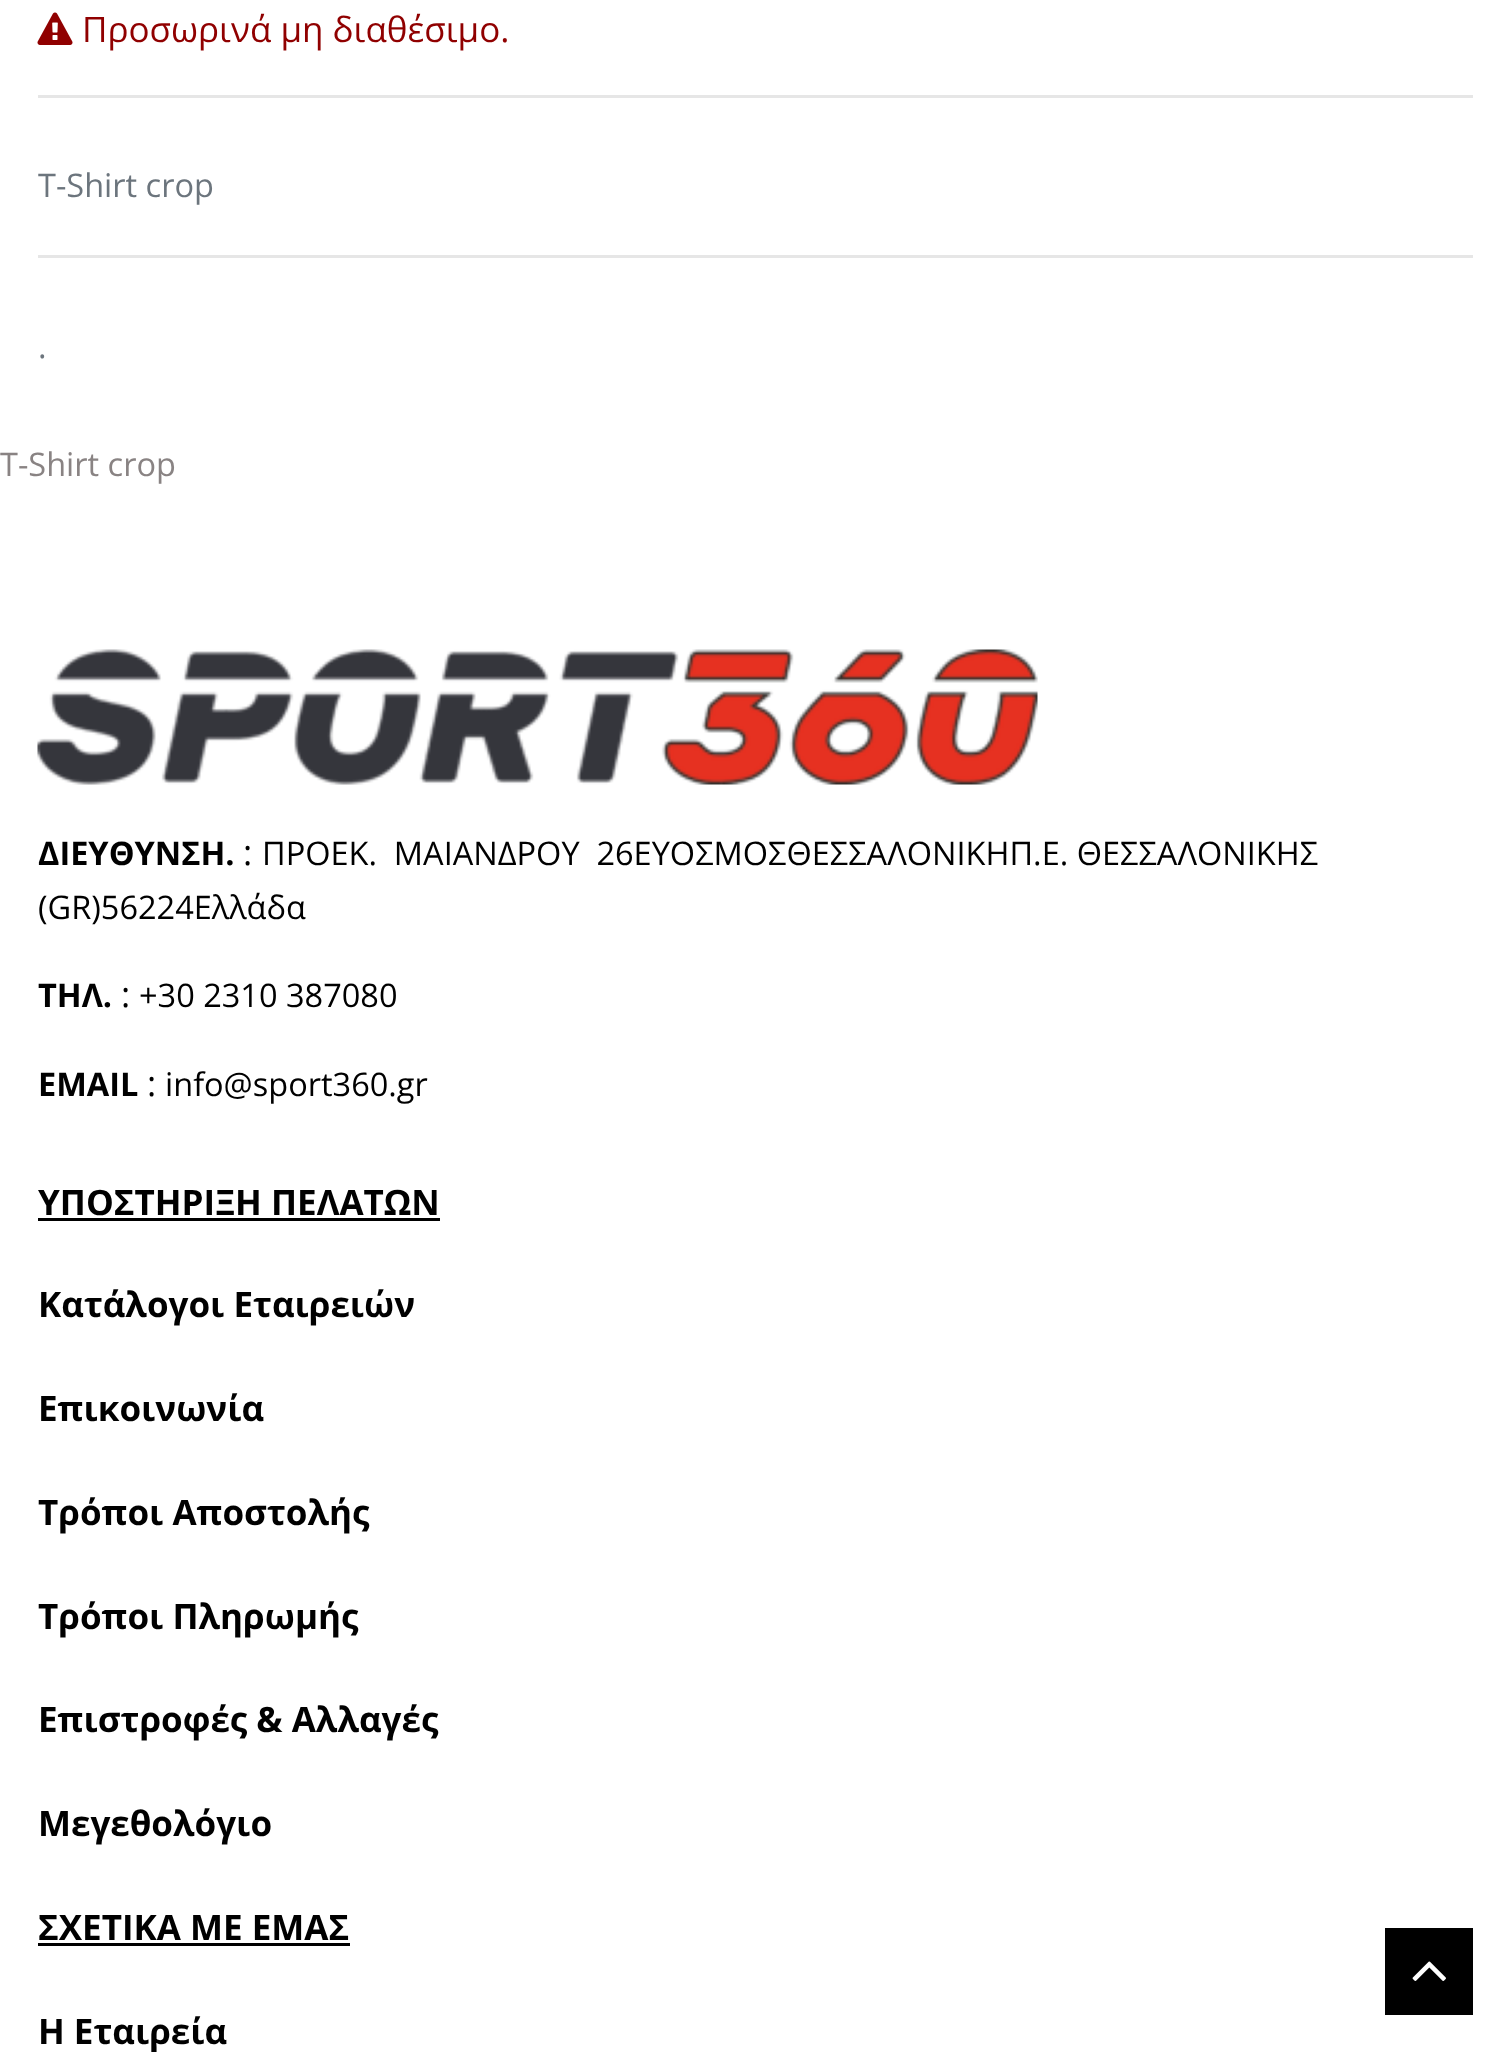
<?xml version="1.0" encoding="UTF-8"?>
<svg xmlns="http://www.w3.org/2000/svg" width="1508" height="2052">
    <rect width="100%" height="100%" fill="#FFFFFF"/>
    <image x="37" y="12" width="36" height="33" href="img_01.png"/>
    <text x="82" y="42" font-family="Open Sans" font-size="35" fill="#900000">Προσωρινά μη διαθέσιμο.</text>
    <rect x="38" y="95" width="1435" height="3" fill="#E6E6E6"/>
    <text x="38" y="197" font-family="Open Sans" font-size="32.5" fill="#6C757D">T-Shirt crop</text>
    <rect x="38" y="255" width="1435" height="3" fill="#E6E6E6"/>
    <text x="38" y="358" font-family="Open Sans" font-size="32.5" fill="#6C757D">.</text>
    <text x="0" y="476" font-family="Open Sans" font-size="32.5" fill="#898383">T-Shirt crop</text>
    <image x="37" y="649" width="1001" height="136" href="img_02.png"/>
    <text x="38" y="865" font-family="Open Sans" font-size="32.5" font-weight="700" fill="#000000">ΔΙΕΥΘΥΝΣΗ.</text>
    <text x="243" y="865" font-family="Open Sans" font-size="35" fill="#000000">:</text>
    <text x="262" y="865" font-family="Open Sans" font-size="32.5" fill="#000000" xml:space="preserve">ΠΡΟΕΚ.  ΜΑΙΑΝΔΡΟΥ  26ΕΥΟΣΜΟΣΘΕΣΣΑΛΟΝΙΚΗΠ.Ε. ΘΕΣΣΑΛΟΝΙΚΗΣ</text>
    <text x="38" y="919" font-family="Open Sans" font-size="32.5" fill="#000000">(GR)56224Ελλάδα</text>
    <text x="38" y="1007" font-family="Open Sans" font-size="32.5" font-weight="700" fill="#000000">ΤΗΛ.</text>
    <text x="121" y="1007" font-family="Open Sans" font-size="35" fill="#000000">:</text>
    <text x="139" y="1007" font-family="Open Sans" font-size="32.5" fill="#000000">+30 2310 387080</text>
    <text x="38" y="1096" font-family="Open Sans" font-size="32.5" font-weight="700" fill="#000000">EMAIL</text>
    <text x="147" y="1096" font-family="Open Sans" font-size="35" fill="#000000">:</text>
    <text x="165" y="1096" font-family="Open Sans" font-size="32.5" fill="#000000">info@sport360.gr</text>
    <text x="38" y="1215" font-family="Open Sans" font-size="35" font-weight="700" fill="#000000">ΥΠΟΣΤΗΡΙΞΗ ΠΕΛΑΤΩΝ</text>
    <rect x="38" y="1218" width="402" height="3" fill="#000000"/>
    <text x="38" y="1317" font-family="Open Sans" font-size="35" font-weight="700" fill="#000000">Κατάλογοι Εταιρειών</text>
    <text x="38" y="1421" font-family="Open Sans" font-size="35" font-weight="700" fill="#000000">Επικοινωνία</text>
    <text x="38" y="1525" font-family="Open Sans" font-size="35" font-weight="700" fill="#000000">Τρόποι Αποστολής</text>
    <text x="38" y="1629" font-family="Open Sans" font-size="35" font-weight="700" fill="#000000">Τρόποι Πληρωμής</text>
    <text x="38" y="1732" font-family="Open Sans" font-size="35" font-weight="700" fill="#000000">Επιστροφές &amp; Αλλαγές</text>
    <text x="38" y="1836" font-family="Open Sans" font-size="35" font-weight="700" fill="#000000">Μεγεθολόγιο</text>
    <text x="38" y="1940" font-family="Open Sans" font-size="35" font-weight="700" fill="#000000">ΣΧΕΤΙΚΑ ΜΕ ΕΜΑΣ</text>
    <rect x="38" y="1943" width="312" height="3" fill="#000000"/>
    <text x="38" y="2044" font-family="Open Sans" font-size="35" font-weight="700" fill="#000000">Η Εταιρεία</text>
    <rect x="1385" y="1928" width="88" height="87" fill="#000000"/>
    <image x="1412" y="1961" width="34" height="20" href="img_03.png"/>
</svg>
